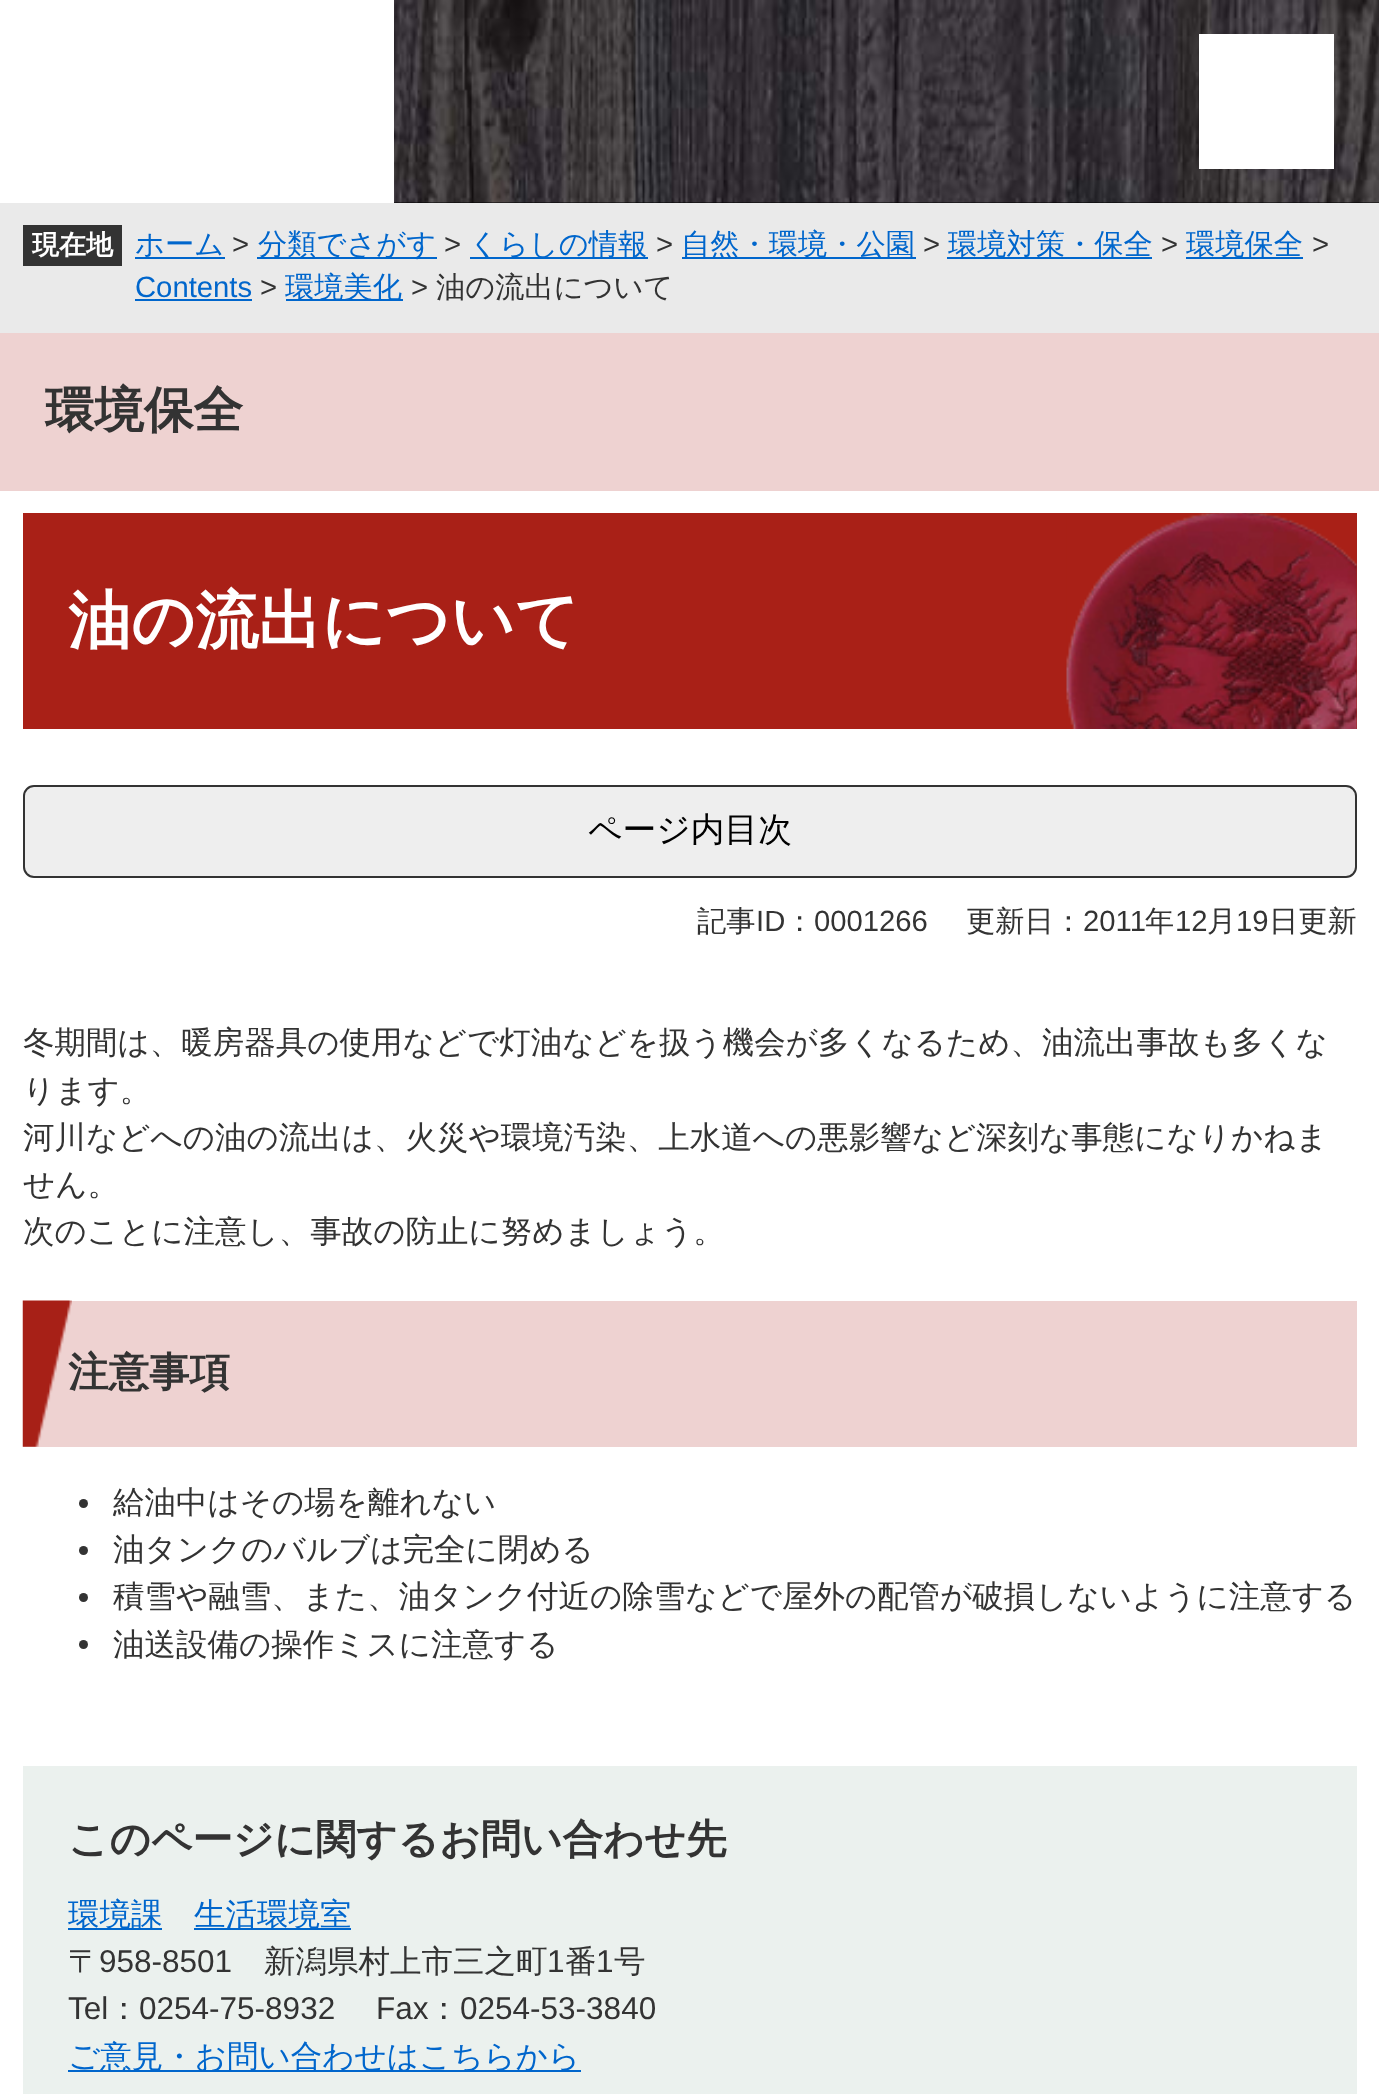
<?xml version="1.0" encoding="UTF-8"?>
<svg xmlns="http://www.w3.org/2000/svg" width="1379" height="2094">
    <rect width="100%" height="100%" fill="#FFFFFF"/>
    <rect x="394" y="202" width="985" height="1" fill="#000000"/>
    <image x="394" y="0" width="985" height="203" href="img_01.png"/>
    <rect x="1199" y="34" width="135" height="135" fill="#FFFFFF"/>
    <rect x="0" y="203" width="1379" height="130" fill="#EAEAEA"/>
    <rect x="23" y="225" width="99" height="41" fill="#333333"/>
    <text x="32" y="254" font-family="WenQuanYi Zen Hei" font-size="27" font-weight="700" fill="#FFFFFF">現在地</text>
    <text x="135" y="254" font-family="WenQuanYi Zen Hei" font-size="29.25" font-weight="500" fill="#0066CC">ホーム</text>
    <rect x="135" y="257" width="90" height="2" fill="#0066CC"/>
    <text x="232" y="254" font-family="Liberation Sans" font-size="29.25" fill="#333333">&gt;</text>
    <rect x="257" y="257" width="180" height="2" fill="#0066CC"/>
    <text x="258" y="254" font-family="WenQuanYi Zen Hei" font-size="29.25" font-weight="500" fill="#0066CC">分類でさがす</text>
    <text x="444" y="254" font-family="Liberation Sans" font-size="29.25" fill="#333333">&gt;</text>
    <rect x="470" y="257" width="178" height="2" fill="#0066CC"/>
    <text x="469" y="254" font-family="WenQuanYi Zen Hei" font-size="29.25" font-weight="500" fill="#0066CC">くらしの情報</text>
    <text x="656" y="254" font-family="Liberation Sans" font-size="29.25" fill="#333333">&gt;</text>
    <rect x="682" y="257" width="234" height="2" fill="#0066CC"/>
    <text x="681" y="254" font-family="WenQuanYi Zen Hei" font-size="29.25" font-weight="500" fill="#0066CC">自然・環境・公園</text>
    <text x="923" y="254" font-family="Liberation Sans" font-size="29.25" fill="#333333">&gt;</text>
    <rect x="947" y="257" width="205" height="2" fill="#0066CC"/>
    <text x="948" y="254" font-family="WenQuanYi Zen Hei" font-size="29.25" font-weight="500" fill="#0066CC">環境対策・保全</text>
    <text x="1161" y="254" font-family="Liberation Sans" font-size="29.25" fill="#333333">&gt;</text>
    <rect x="1186" y="257" width="117" height="2" fill="#0066CC"/>
    <text x="1186" y="254" font-family="WenQuanYi Zen Hei" font-size="29.25" font-weight="500" fill="#0066CC">環境保全</text>
    <text x="1312" y="254" font-family="Liberation Sans" font-size="29.25" fill="#333333">&gt;</text>
    <text x="135" y="297" font-family="Liberation Sans" font-size="29.25" fill="#0066CC">Contents</text>
    <rect x="135" y="299" width="117" height="2" fill="#0066CC"/>
    <text x="260" y="297" font-family="Liberation Sans" font-size="29.25" fill="#333333">&gt;</text>
    <rect x="286" y="299" width="117" height="2" fill="#0066CC"/>
    <text x="285" y="297" font-family="WenQuanYi Zen Hei" font-size="29.25" font-weight="500" fill="#0066CC">環境美化</text>
    <text x="411" y="297" font-family="Liberation Sans" font-size="29.25" fill="#333333">&gt;</text>
    <text x="436" y="297" font-family="WenQuanYi Zen Hei" font-size="29.25" font-weight="500" fill="#333333">油の流出について</text>
    <rect x="0" y="333" width="1379" height="158" fill="#EED2D1"/>
    <text x="45" y="427" font-family="WenQuanYi Zen Hei" font-size="49.5" font-weight="700" fill="#333333">環境保全</text>
    <rect x="23" y="513" width="1334" height="216" fill="#A92017"/>
    <image x="1066" y="513" width="291" height="216" href="img_02.png"/>
    <text x="68" y="642" font-family="WenQuanYi Zen Hei" font-size="63" font-weight="700" fill="#FFFFFF">油の流出について</text>
    <rect x="24" y="786" width="1332" height="91" rx="10" fill="#EEEEEE" stroke="#333333" stroke-width="2"/>
    <text x="588" y="841" font-family="WenQuanYi Zen Hei" font-size="33.75" font-weight="500" fill="#000000">ページ内目次</text>
    <text x="697" y="931" font-family="WenQuanYi Zen Hei" font-size="29.25" font-weight="500" fill="#333333">記事</text>
    <text x="756" y="931" font-family="Liberation Sans" font-size="29.25" fill="#333333">ID</text>
    <text x="785" y="931" font-family="WenQuanYi Zen Hei" font-size="29.25" font-weight="500" fill="#333333">：</text>
    <text x="814" y="931" font-family="Liberation Sans" font-size="29.25" fill="#333333">0001266</text>
    <text x="966" y="931" font-family="WenQuanYi Zen Hei" font-size="29.25" font-weight="500" fill="#333333">更新日：</text>
    <text x="1083" y="931" font-family="Liberation Sans" font-size="29.25" fill="#333333">2011</text>
    <text x="1145" y="931" font-family="WenQuanYi Zen Hei" font-size="29.25" font-weight="500" fill="#333333">年</text>
    <text x="1175" y="931" font-family="Liberation Sans" font-size="29.25" fill="#333333">12</text>
    <text x="1207" y="931" font-family="WenQuanYi Zen Hei" font-size="29.25" font-weight="500" fill="#333333">月</text>
    <text x="1236" y="931" font-family="Liberation Sans" font-size="29.25" fill="#333333">19</text>
    <text x="1269" y="931" font-family="WenQuanYi Zen Hei" font-size="29.25" font-weight="500" fill="#333333">日更新</text>
    <text font-family="WenQuanYi Zen Hei" font-size="31.5" font-weight="500" fill="#333333">
        <tspan x="23" y="1053">冬期間は、暖房器具の使用などで灯油などを扱う機会が多くなるため、油流出事故も多くな</tspan>
        <tspan x="23" y="1101">ります。</tspan>
        <tspan x="23" y="1148">河川などへの油の流出は、火災や環境汚染、上水道への悪影響など深刻な事態になりかねま</tspan>
        <tspan x="23" y="1195">せん。</tspan>
        <tspan x="23" y="1242">次のことに注意し、事故の防止に努めましょう。</tspan>
    </text>
    <rect x="23" y="1301" width="1334" height="146" fill="#EED2D1"/>
    <image x="22" y="1300" width="50" height="147" href="img_03.png"/>
    <text x="68" y="1386" font-family="WenQuanYi Zen Hei" font-size="40.5" font-weight="700" fill="#333333">注意事項</text>
    <circle cx="83.5" cy="1503.5" r="4.5" fill="#333333"/>
    <text x="113" y="1513" font-family="WenQuanYi Zen Hei" font-size="31.5" font-weight="500" fill="#333333">給油中はその場を離れない</text>
    <circle cx="83.5" cy="1550.5" r="4.5" fill="#333333"/>
    <text x="113" y="1560" font-family="WenQuanYi Zen Hei" font-size="31.5" font-weight="500" fill="#333333">油タンクのバルブは完全に閉める</text>
    <circle cx="83.5" cy="1597.5" r="4.5" fill="#333333"/>
    <text x="113" y="1607" font-family="WenQuanYi Zen Hei" font-size="31.5" font-weight="500" fill="#333333">積雪や融雪、また、油タンク付近の除雪などで屋外の配管が破損しないように注意する</text>
    <circle cx="83.5" cy="1644.5" r="4.5" fill="#333333"/>
    <text x="113" y="1655" font-family="WenQuanYi Zen Hei" font-size="31.5" font-weight="500" fill="#333333">油送設備の操作ミスに注意する</text>
    <rect x="23" y="1766" width="1334" height="328" fill="#EBF1EE"/>
    <text x="68" y="1853" font-family="WenQuanYi Zen Hei" font-size="40.5" font-weight="700" fill="#333333">このページに関するお問い合わせ先</text>
    <rect x="68" y="1928" width="94" height="2" fill="#0066CC"/>
    <text x="68" y="1925" font-family="WenQuanYi Zen Hei" font-size="31.5" font-weight="500" fill="#0066CC">環境課</text>
    <rect x="194" y="1928" width="157" height="2" fill="#0066CC"/>
    <text x="194" y="1925" font-family="WenQuanYi Zen Hei" font-size="31.5" font-weight="500" fill="#0066CC">生活環境室</text>
    <text x="68" y="1972" font-family="WenQuanYi Zen Hei" font-size="31.5" font-weight="500" fill="#333333">〒</text>
    <text x="99" y="1972" font-family="Liberation Sans" font-size="31.5" fill="#333333">958-8501</text>
    <text x="264" y="1972" font-family="WenQuanYi Zen Hei" font-size="31.5" font-weight="500" fill="#333333">新潟県村上市三之町</text>
    <text x="547" y="1972" font-family="Liberation Sans" font-size="31.5" fill="#333333">1</text>
    <text x="565" y="1972" font-family="WenQuanYi Zen Hei" font-size="31.5" font-weight="500" fill="#333333">番</text>
    <text x="596" y="1972" font-family="Liberation Sans" font-size="31.5" fill="#333333">1</text>
    <text x="614" y="1972" font-family="WenQuanYi Zen Hei" font-size="31.5" font-weight="500" fill="#333333">号</text>
    <text x="68" y="2019" font-family="Liberation Sans" font-size="31.5" fill="#333333">Tel</text>
    <text x="108" y="2019" font-family="WenQuanYi Zen Hei" font-size="31.5" font-weight="500" fill="#333333">：</text>
    <text x="139" y="2019" font-family="Liberation Sans" font-size="31.5" fill="#333333">0254-75-8932</text>
    <text x="376" y="2019" font-family="Liberation Sans" font-size="31.5" fill="#333333">Fax</text>
    <text x="428" y="2019" font-family="WenQuanYi Zen Hei" font-size="31.5" font-weight="500" fill="#333333">：</text>
    <text x="460" y="2019" font-family="Liberation Sans" font-size="31.5" fill="#333333">0254-53-3840</text>
    <rect x="68" y="2070" width="513" height="2" fill="#0066CC"/>
    <text x="68" y="2067" font-family="WenQuanYi Zen Hei" font-size="31.5" font-weight="500" fill="#0066CC">ご意見・お問い合わせはこちらから</text>
</svg>
